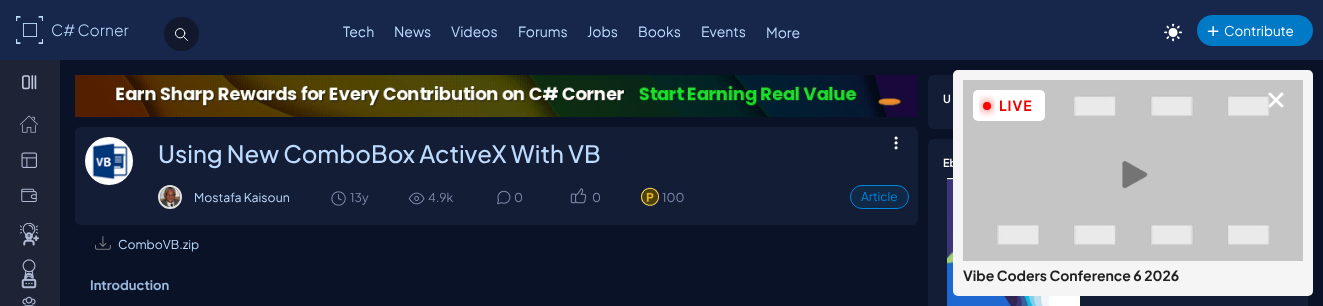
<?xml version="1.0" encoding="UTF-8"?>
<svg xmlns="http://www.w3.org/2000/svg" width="1323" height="306">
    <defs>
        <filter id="blur1" x="-50%" y="-200%" width="200%" height="500%"><feGaussianBlur stdDeviation="5"/></filter>
    </defs>
    <rect width="100%" height="100%" fill="#091227"/>
    <rect x="0" y="0" width="1323" height="60" fill="#17264B"/>
    <image x="16" y="16" width="28" height="28" href="img_01.png"/>
    <rect x="23.35" y="23.35" width="13.3" height="13.3" fill="none" stroke="#BCDBFE" stroke-width="0.7"/>
    <rect x="23.35" y="23.35" width="13.3" height="13.3" fill="none" stroke="#BCDBFE" stroke-width="0.7"/>
    <text x="51" y="36" font-family="Plus Jakarta Sans" font-size="15.5" font-weight="300" fill="#BCDBFE">C# Corner</text>
    <rect x="164" y="17" width="35" height="34" rx="17" fill="#12192D"/>
    <image x="175" y="28" width="13" height="13" href="img_02.png"/>
    <text x="343" y="37" font-family="Plus Jakarta Sans" font-size="14" fill="#BCDBFE">Tech</text>
    <text x="394" y="37" font-family="Plus Jakarta Sans" font-size="14" fill="#BCDBFE">News</text>
    <text x="451" y="37" font-family="Plus Jakarta Sans" font-size="14" fill="#BCDBFE">Videos</text>
    <text x="518" y="37" font-family="Plus Jakarta Sans" font-size="14" fill="#BCDBFE">Forums</text>
    <text x="587" y="37" font-family="Plus Jakarta Sans" font-size="14" fill="#BCDBFE">Jobs</text>
    <text x="638" y="37" font-family="Plus Jakarta Sans" font-size="14" fill="#BCDBFE">Books</text>
    <text x="701" y="37" font-family="Plus Jakarta Sans" font-size="14" fill="#BCDBFE">Events</text>
    <text x="766" y="38" font-family="Plus Jakarta Sans" font-size="14" fill="#BCDBFE">More</text>
    <image x="1164" y="23" width="18" height="19" href="img_03.png"/>
    <rect x="1197" y="15" width="116" height="31" rx="15.5" fill="#0079C7"/>
    <image x="1207" y="26" width="12" height="10" href="img_04.png"/>
    <text x="1224" y="36" font-family="Plus Jakarta Sans" font-size="13.5" fill="#FFFFFF">Contribute</text>
    <rect x="0" y="60" width="60" height="246" fill="#1E2435"/>
    <image x="22" y="75" width="15" height="15" href="img_05.png"/>
    <image x="20" y="115" width="18" height="18" href="img_06.png"/>
    <image x="21" y="152" width="16" height="16" href="img_07.png"/>
    <image x="21" y="188" width="16" height="14" href="img_08.png"/>
    <image x="20" y="223" width="18" height="17" href="img_09.png"/>
    <image x="22" y="259" width="14" height="20" href="img_10.png"/>
    <image x="22" y="296" width="14" height="10" href="img_11.png"/>
    <image x="23" y="232" width="16" height="14" href="img_12.png"/>
    <image x="21" y="272" width="16" height="17" href="img_13.png"/>
    <image x="75" y="75" width="843" height="42" href="img_14.png"/>
    <rect x="75" y="127" width="843" height="98" rx="6" fill="#141D36"/>
    <image x="85" y="137" width="48" height="48" href="img_15.png"/>
    <text x="158" y="163" font-family="Plus Jakarta Sans" font-size="24" font-weight="500" fill="#BCDBFE">Using New ComboBox ActiveX With VB</text>
    <image x="894" y="136" width="4" height="14" href="img_16.png"/>
    <circle cx="170" cy="197" r="11" fill="none" stroke="#E1E1E1" stroke-width="2"/>
    <image x="160" y="187" width="20" height="20" href="img_17.png"/>
    <text x="194" y="202" font-family="Plus Jakarta Sans" font-size="12.25" fill="#BCDBFE">Mostafa Kaisoun</text>
    <image x="331" y="191" width="15" height="15" href="img_18.png"/>
    <text x="350" y="202" font-family="Plus Jakarta Sans" font-size="12.25" fill="#7F8AAB">13y</text>
    <image x="408" y="192" width="17" height="13" href="img_19.png"/>
    <text x="428" y="202" font-family="Plus Jakarta Sans" font-size="12.25" fill="#7F8AAB">4.9k</text>
    <image x="497" y="190" width="14" height="15" href="img_20.png"/>
    <text x="514" y="202" font-family="Plus Jakarta Sans" font-size="12.25" fill="#7F8AAB">0</text>
    <image x="570" y="188" width="17" height="16" href="img_21.png"/>
    <text x="592" y="202" font-family="Plus Jakarta Sans" font-size="12.25" fill="#7F8AAB">0</text>
    <image x="641" y="187" width="18" height="19" href="img_22.png"/>
    <text x="662" y="202" font-family="Plus Jakarta Sans" font-size="12.25" fill="#7F8AAB">100</text>
    <rect x="851" y="186" width="57" height="22" rx="11" fill="#122847"/>
    <rect x="850.5" y="185.5" width="58" height="23" rx="11.5" fill="none" stroke="#0086DC"/>
    <text x="861" y="201" font-family="Plus Jakarta Sans" font-size="12" fill="#0086DC">Article</text>
    <image x="95" y="236" width="16" height="14" href="img_23.png"/>
    <text x="118" y="249" font-family="Plus Jakarta Sans" font-size="12.25" fill="#BCDBFE">ComboVB.zip</text>
    <text x="90" y="290" font-family="Plus Jakarta Sans" font-size="13" font-weight="700" fill="#9AB9DC">Introduction</text>
    <rect x="928" y="75" width="380" height="54" rx="6" fill="#141D36"/>
    <text x="943" y="103" font-family="Plus Jakarta Sans" font-size="11" font-weight="600" fill="#FFFFFF">U</text>
    <rect x="928" y="139" width="380" height="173" rx="6" fill="#141D36"/>
    <text x="943" y="167" font-family="Plus Jakarta Sans" font-size="11" font-weight="600" fill="#FFFFFF">Eb</text>
    <image x="947" y="178" width="133" height="128" href="img_24.png"/>
    <rect x="953" y="70" width="360" height="226" rx="5" fill="#F5F5F5"/>
    <image x="963" y="80" width="340" height="181" href="img_25.png"/>
    <image x="1122" y="161" width="26" height="28" href="img_26.png"/>
    <rect x="973" y="90" width="72" height="31" rx="5" fill="#FFFFFF"/>
    <rect x="983" y="102" width="8" height="8" rx="4" fill="#FF0101" filter="url(#blur1)"/>
    <circle cx="987" cy="106" r="4" fill="#FF0101"/>
    <text x="999" y="111" font-family="Plus Jakarta Sans" font-size="14" font-weight="700" letter-spacing="1" fill="#ED0000">LIVE</text>
    <text x="963" y="281" font-family="Plus Jakarta Sans" font-size="14" font-weight="700" fill="#212121">Vibe Coders Conference 6 2026</text>
    <path d="M 1271 93 L 1281 103 C 1282 103.5 1284.5 105.5 1283 107 C 1281.5 108.5 1279.5 105.5 1279 105 L 1268.5 94.5 C 1268 93 1270 91.5 1271 93 Z" fill="#FFFFFF"/>
    <path d="M 1269 105 L 1279 95 C 1279.5 94 1281.5 91.5 1283 93 C 1284.5 94.5 1282 96 1281 97 L 1270.5 107.5 C 1269 108 1268 106 1269 105 Z" fill="#FFFFFF"/>
</svg>
